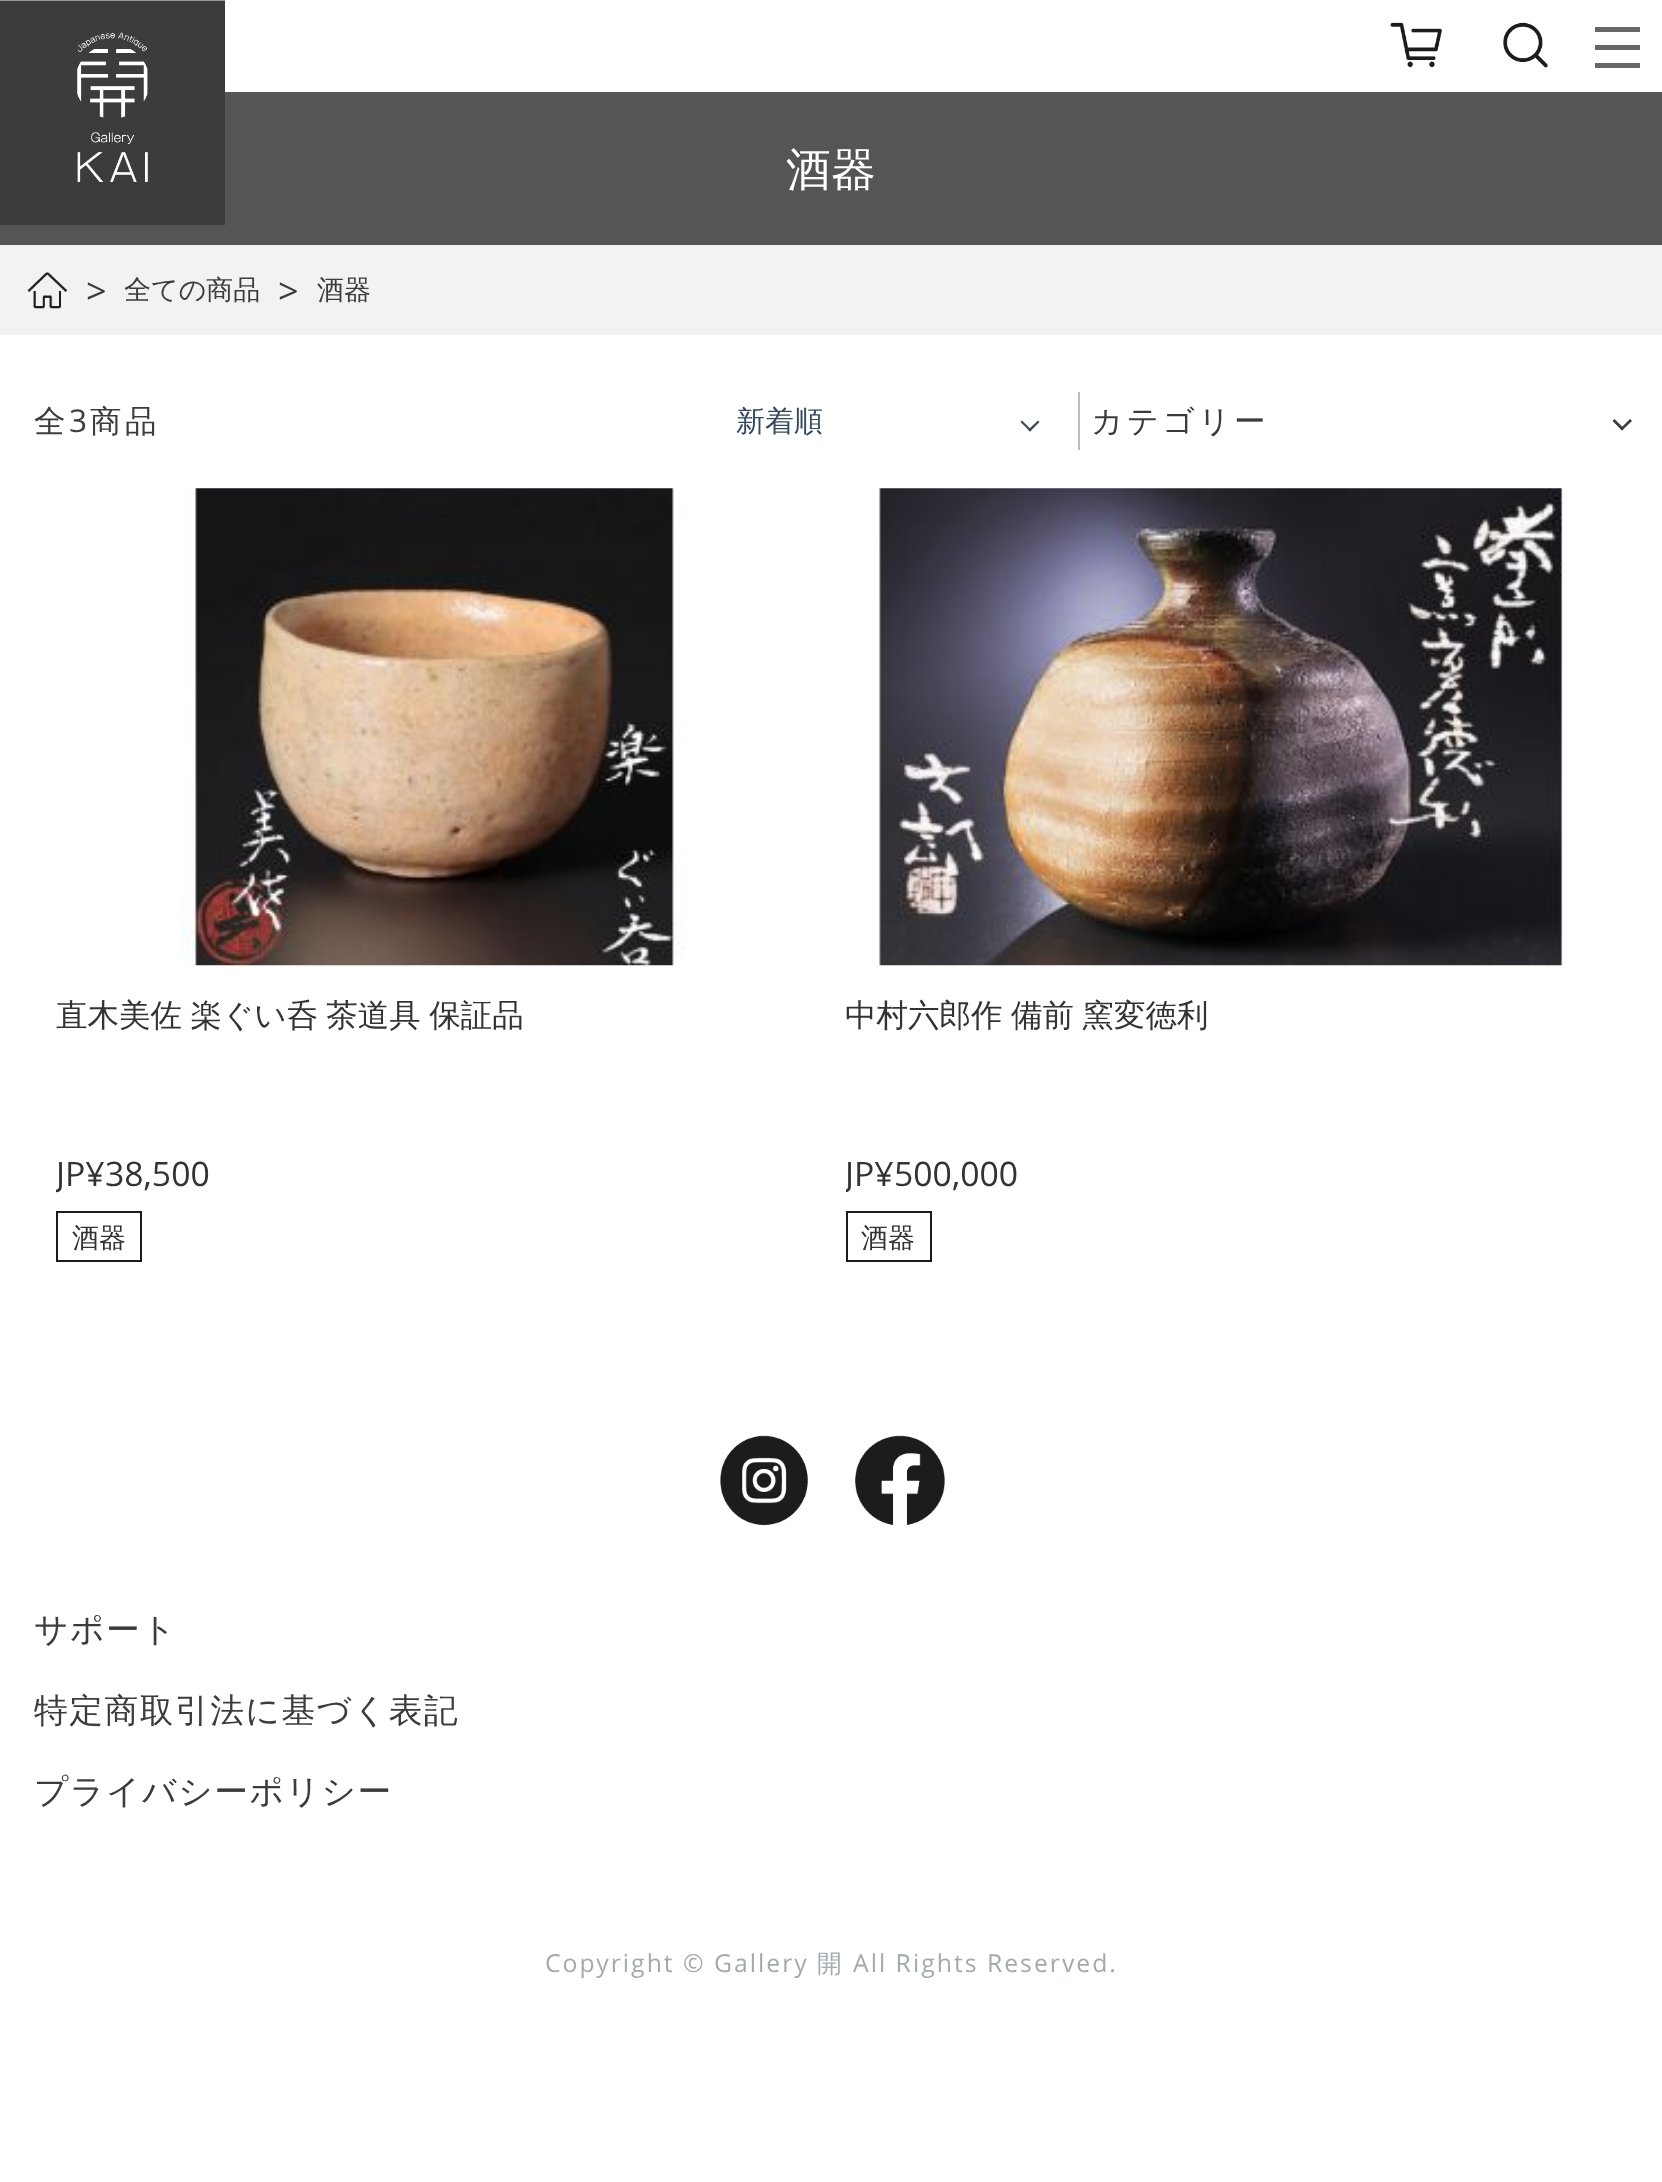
<?xml version="1.0" encoding="UTF-8"?>
<svg xmlns="http://www.w3.org/2000/svg" width="1662" height="2182">
    <defs>
        <clipPath id="clip1"><rect x="56" y="1148" width="754" height="49"/></clipPath>
        <clipPath id="clip2"><rect x="846" y="1148" width="752" height="49"/></clipPath>
    </defs>
    <rect width="100%" height="100%" fill="#FFFFFF"/>
    <rect x="0" y="92" width="1662" height="153" fill="#555555"/>
    <image x="0" y="0" width="225" height="225" href="img_01.png"/>
    <image x="1390" y="22" width="52" height="46" href="img_02.png"/>
    <image x="1503" y="22" width="45" height="46" href="img_03.png"/>
    <rect x="1595" y="27" width="45" height="5" fill="#666666"/>
    <rect x="1595" y="45" width="45" height="5" fill="#666666"/>
    <rect x="1595" y="63" width="45" height="5" fill="#666666"/>
    <text x="786" y="185" font-family="WenQuanYi Zen Hei" font-size="45" font-weight="500" fill="#FFFFFF">酒器</text>
    <rect x="0" y="245" width="1662" height="90" fill="#F2F2F2"/>
    <image x="27" y="272" width="41" height="37" href="img_04.png"/>
    <text x="86" y="304" font-family="Open Sans" font-size="36" fill="#3C3C3C">&gt;</text>
    <text x="124" y="299" font-family="WenQuanYi Zen Hei" font-size="27" font-weight="500" fill="#3C3C3C">全ての商品</text>
    <text x="278" y="304" font-family="Open Sans" font-size="36" fill="#3C3C3C">&gt;</text>
    <text x="317" y="299" font-family="WenQuanYi Zen Hei" font-size="27" font-weight="500" fill="#3C3C3C">酒器</text>
    <text x="34" y="432" font-family="WenQuanYi Zen Hei" font-size="31.5" font-weight="500" letter-spacing="3.5" fill="#3C3C3C">全</text>
    <text x="69" y="432" font-family="Open Sans" font-size="31.5" letter-spacing="3.5" fill="#3C3C3C">3</text>
    <text x="90" y="432" font-family="WenQuanYi Zen Hei" font-size="31.5" font-weight="500" letter-spacing="3.5" fill="#3C3C3C">商品</text>
    <text x="736" y="431" font-family="WenQuanYi Zen Hei" font-size="29" font-weight="500" fill="#34495E">新着順</text>
    <path d="M 1038 420.5 L 1039.5 422 L 1030 431.5 L 1028 430 Z" fill="#34495E"/>
    <path d="M 1022 420.5 L 1031.5 430 L 1030 431.5 L 1020.5 422 Z" fill="#34495E"/>
    <rect x="1078" y="392" width="2" height="58" fill="#BDBDBD"/>
    <text x="1091" y="432" font-family="WenQuanYi Zen Hei" font-size="31.5" font-weight="500" letter-spacing="3.5" fill="#3C3C3C">カテゴリー</text>
    <path d="M 1630 419 L 1632 421 L 1622 430.5 L 1620.5 428.5 Z" fill="#3C3C3C"/>
    <path d="M 1614.5 419 L 1624 428.5 L 1622 430.5 L 1612.5 421 Z" fill="#3C3C3C"/>
    <image x="180" y="488" width="506" height="478" href="img_05.png"/>
    <text x="56" y="1026" word-spacing="-1" font-family="WenQuanYi Zen Hei" font-size="31.5" font-weight="500" fill="#333333">直木美佐 楽ぐい呑 茶道具 保証品</text>
    <g clip-path="url(#clip1)">
        <text x="56" y="1186" font-family="Open Sans" font-size="33.75" fill="#333333">JP¥</text>
    </g>
    <text x="105" y="1186" font-family="Open Sans" font-size="33.75" fill="#333333">38,500</text>
    <rect x="57" y="1212" width="84" height="49" fill="none" stroke="#1C1C1C" stroke-width="2"/>
    <text x="72" y="1247" font-family="WenQuanYi Zen Hei" font-size="27" font-weight="500" fill="#333333">酒器</text>
    <image x="879" y="488" width="685" height="478" href="img_06.png"/>
    <text x="845" y="1026" word-spacing="-1" font-family="WenQuanYi Zen Hei" font-size="31.5" font-weight="500" fill="#333333">中村六郎作 備前 窯変徳利</text>
    <g clip-path="url(#clip2)">
        <text x="845" y="1186" font-family="Open Sans" font-size="33.75" fill="#333333">JP¥</text>
    </g>
    <text x="894" y="1186" font-family="Open Sans" font-size="33.75" fill="#333333">500,000</text>
    <rect x="847" y="1212" width="84" height="49" fill="none" stroke="#1C1C1C" stroke-width="2"/>
    <text x="861" y="1247" font-family="WenQuanYi Zen Hei" font-size="27" font-weight="500" fill="#333333">酒器</text>
    <image x="720" y="1435" width="88" height="91" href="img_07.png"/>
    <image x="855" y="1435" width="90" height="91" href="img_08.png"/>
    <text x="34" y="1641" font-family="WenQuanYi Zen Hei" font-size="33.75" font-weight="500" letter-spacing="1.5" fill="#3C3C3C">サポート</text>
    <text x="34" y="1722" font-family="WenQuanYi Zen Hei" font-size="33.75" font-weight="500" letter-spacing="1.5" fill="#3C3C3C">特定商取引法に基づく表記</text>
    <text x="34" y="1803" font-family="WenQuanYi Zen Hei" font-size="33.75" font-weight="500" letter-spacing="1.5" fill="#3C3C3C">プライバシーポリシー</text>
    <text x="545" y="1972" font-family="Open Sans" font-size="24.75" letter-spacing="2" fill="#A3AAAF">Copyright © Gallery</text>
    <text x="817" y="1972" font-family="WenQuanYi Zen Hei" font-size="24.75" font-weight="500" letter-spacing="2" fill="#A3AAAF">開</text>
    <text x="853" y="1972" font-family="Open Sans" font-size="24.75" letter-spacing="2" fill="#A3AAAF">All Rights Reserved.</text>
</svg>
